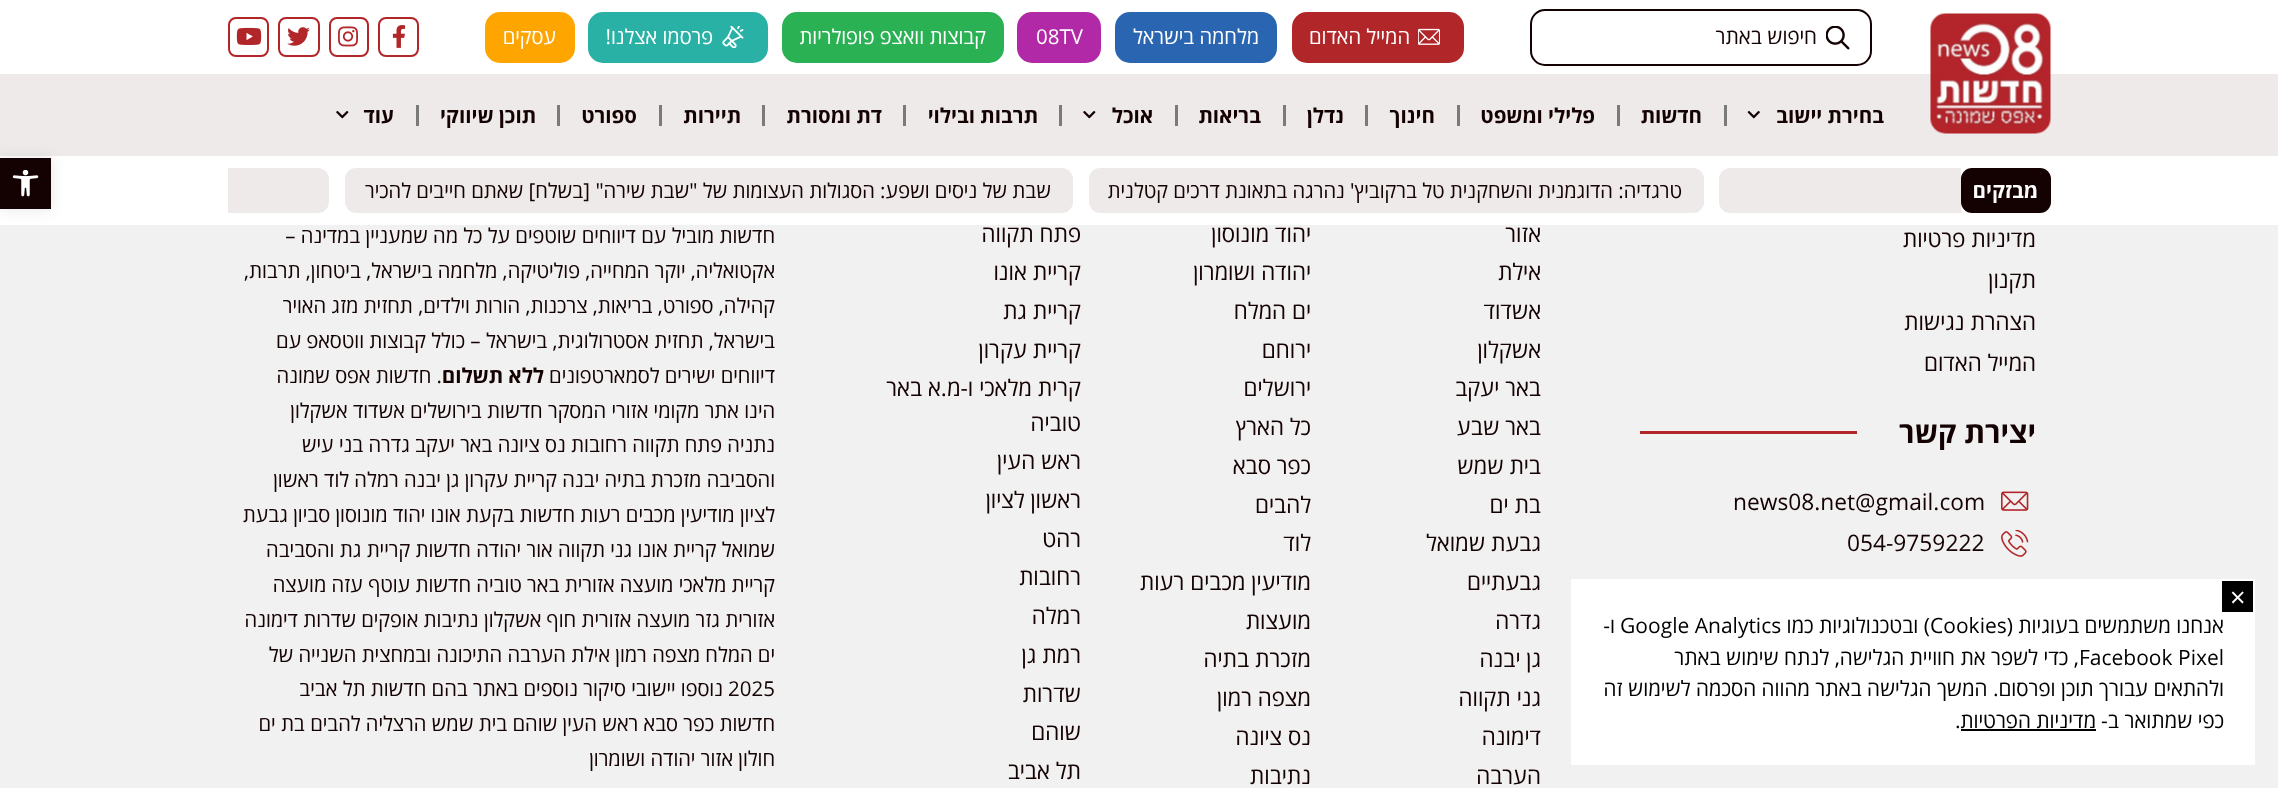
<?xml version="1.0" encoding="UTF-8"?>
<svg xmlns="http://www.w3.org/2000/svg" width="2278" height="788">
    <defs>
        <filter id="blur1" x="-50%" y="-200%" width="200%" height="500%"><feGaussianBlur stdDeviation="7.5"/></filter>
    </defs>
    <rect width="100%" height="100%" fill="#F1F1F1"/>
    <rect x="0" y="0" width="2278" height="225" fill="#FFFFFF"/>
    <rect x="0" y="74" width="2278" height="82" fill="#EFEAEA"/>
    <image x="1930" y="13" width="121" height="121" href="img_01.png"/>
    <rect x="1531" y="10" width="340" height="55" rx="14" fill="none" stroke="#140102" stroke-width="2"/>
    <image x="1826" y="26" width="24" height="24" href="img_02.png"/>
    <text x="1817" y="44" font-family="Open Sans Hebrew" font-size="21" direction="rtl" fill="#140102">חיפוש באתר</text>
    <rect x="1292" y="12" width="172" height="51" rx="15" fill="#B12629"/>
    <image x="1418" y="28" width="22" height="17" href="img_03.png"/>
    <text x="1410" y="44" font-family="Open Sans Hebrew" font-size="20.5" direction="rtl" fill="#FFFFFF">המייל האדום</text>
    <rect x="1115" y="12" width="162" height="51" rx="15" fill="#2965B1"/>
    <text x="1259" y="44" font-family="Open Sans Hebrew" font-size="20.5" direction="rtl" fill="#FFFFFF">מלחמה בישראל</text>
    <rect x="1017" y="12" width="84" height="51" rx="15" fill="#B129A6"/>
    <text x="1036" y="44" font-family="Open Sans Hebrew" font-size="20.5" fill="#FFFFFF">08TV</text>
    <rect x="782" y="12" width="222" height="51" rx="15" fill="#29B154"/>
    <text x="986" y="44" font-family="Open Sans Hebrew" font-size="20.5" direction="rtl" fill="#FFFFFF">קבוצות וואצפ פופולריות</text>
    <rect x="588" y="12" width="180" height="51" rx="15" fill="#29B1A6"/>
    <image x="722" y="26" width="22" height="22" href="img_04.png"/>
    <text x="713" y="44" font-family="Open Sans Hebrew" font-size="20.5" direction="rtl" fill="#FFFFFF">פרסמו אצלנו!</text>
    <rect x="485" y="12" width="90" height="51" rx="15" fill="#FFA500"/>
    <text x="556" y="44" font-family="Open Sans Hebrew" font-size="20.5" direction="rtl" fill="#FFFFFF">עסקים</text>
    <rect x="379" y="18" width="39" height="38" rx="7" fill="none" stroke="#B12629" stroke-width="2"/>
    <image x="392" y="25" width="14" height="23" href="img_05.png"/>
    <rect x="330" y="18" width="38" height="38" rx="7" fill="none" stroke="#B12629" stroke-width="2"/>
    <image x="338" y="26" width="20" height="21" href="img_06.png"/>
    <rect x="279" y="18" width="40" height="38" rx="7" fill="none" stroke="#B12629" stroke-width="2"/>
    <image x="287" y="27" width="23" height="19" href="img_07.png"/>
    <rect x="229" y="18" width="39" height="38" rx="7" fill="none" stroke="#B12629" stroke-width="2"/>
    <image x="236" y="27" width="26" height="18" href="img_08.png"/>
    <text x="1884" y="123" font-family="Open Sans Hebrew" font-size="20.5" font-weight="700" direction="rtl" fill="#140102">בחירת יישוב</text>
    <image x="1747" y="111" width="13" height="8" href="img_09.png"/>
    <rect x="1724" y="105" width="3" height="21" fill="#7A7A7A"/>
    <text x="1702" y="123" font-family="Open Sans Hebrew" font-size="20.5" font-weight="700" direction="rtl" fill="#140102">חדשות</text>
    <rect x="1617" y="105" width="3" height="21" fill="#7A7A7A"/>
    <text x="1595" y="123" font-family="Open Sans Hebrew" font-size="20.5" font-weight="700" direction="rtl" fill="#140102">פלילי ומשפט</text>
    <rect x="1457" y="105" width="3" height="21" fill="#7A7A7A"/>
    <text x="1435" y="123" font-family="Open Sans Hebrew" font-size="20.5" font-weight="700" direction="rtl" fill="#140102">חינוך</text>
    <rect x="1365" y="105" width="3" height="21" fill="#7A7A7A"/>
    <text x="1344" y="123" font-family="Open Sans Hebrew" font-size="20.5" font-weight="700" direction="rtl" fill="#140102">נדלן</text>
    <rect x="1283" y="105" width="3" height="21" fill="#7A7A7A"/>
    <text x="1261" y="123" font-family="Open Sans Hebrew" font-size="20.5" font-weight="700" direction="rtl" fill="#140102">בריאות</text>
    <rect x="1175" y="105" width="3" height="21" fill="#7A7A7A"/>
    <text x="1153" y="123" font-family="Open Sans Hebrew" font-size="20.5" font-weight="700" direction="rtl" fill="#140102">אוכל</text>
    <image x="1083" y="111" width="13" height="8" href="img_10.png"/>
    <rect x="1059" y="105" width="3" height="21" fill="#7A7A7A"/>
    <text x="1038" y="123" font-family="Open Sans Hebrew" font-size="20.5" font-weight="700" direction="rtl" fill="#140102">תרבות ובילוי</text>
    <rect x="903" y="105" width="3" height="21" fill="#7A7A7A"/>
    <text x="882" y="123" font-family="Open Sans Hebrew" font-size="20.5" font-weight="700" direction="rtl" fill="#140102">דת ומסורת</text>
    <rect x="762" y="105" width="3" height="21" fill="#7A7A7A"/>
    <text x="741" y="123" font-family="Open Sans Hebrew" font-size="20.5" font-weight="700" direction="rtl" fill="#140102">תיירות</text>
    <rect x="659" y="105" width="3" height="21" fill="#7A7A7A"/>
    <text x="637" y="123" font-family="Open Sans Hebrew" font-size="20.5" font-weight="700" direction="rtl" fill="#140102">ספורט</text>
    <rect x="557" y="105" width="3" height="21" fill="#7A7A7A"/>
    <text x="536" y="123" font-family="Open Sans Hebrew" font-size="20.5" font-weight="700" direction="rtl" fill="#140102">תוכן שיווקי</text>
    <rect x="416" y="105" width="3" height="21" fill="#7A7A7A"/>
    <text x="394" y="123" font-family="Open Sans Hebrew" font-size="20.5" font-weight="700" direction="rtl" fill="#140102">עוד</text>
    <image x="336" y="111" width="13" height="8" href="img_10.png"/>
    <rect x="1961" y="168" width="90" height="45" rx="11" fill="#140102"/>
    <text x="2038" y="198" font-family="Open Sans Hebrew" font-size="20.5" font-weight="700" direction="rtl" fill="#FFFFFF">מבזקים</text>
    <path d="M 1730 168 H 1961 V 213 H 1730 C 1724 213 1719 208 1719 202 V 179 C 1719 173 1724 168 1730 168 Z" fill="#EFEAEA"/>
    <rect x="1089" y="168" width="615" height="45" rx="11" fill="#EFEAEA"/>
    <text x="1682" y="198" font-family="Open Sans Hebrew" font-size="20.5" direction="rtl" fill="#140102">טרגדיה: הדוגמנית והשחקנית טל ברקוביץ' נהרגה בתאונת דרכים קטלנית</text>
    <rect x="345" y="168" width="728" height="45" rx="11" fill="#EFEAEA"/>
    <text x="1051" y="198" font-family="Open Sans Hebrew" font-size="20.5" direction="rtl" fill="#140102">שבת של ניסים ושפע: הסגולות העצומות של "שבת שירה"</text>
    <text x="590" y="198" font-family="Open Sans Hebrew" font-size="20.5" direction="rtl" fill="#140102">[בשלח] שאתם חייבים להכיר</text>
    <path d="M 228 168 H 318 C 324 168 329 173 329 179 V 202 C 329 208 324 213 318 213 H 228 Z" fill="#EFEAEA"/>
    <rect x="0" y="158" width="51" height="51" fill="#000000" fill-opacity="0.1" filter="url(#blur1)"/>
    <rect x="0" y="158" width="51" height="51" fill="#140102"/>
    <image x="12" y="170" width="27" height="27" href="img_11.png"/>
    <text font-family="Open Sans Hebrew" font-size="22.75" direction="rtl" fill="#140102">
        <tspan x="2036" y="247">מדיניות פרטיות</tspan>
        <tspan x="2036" y="288">תקנון</tspan>
        <tspan x="2036" y="330">הצהרת נגישות</tspan>
        <tspan x="2036" y="371">המייל האדום</tspan>
    </text>
    <text x="2036" y="443" font-family="Open Sans Hebrew" font-size="29.5" font-weight="700" direction="rtl" fill="#140102">יצירת קשר</text>
    <rect x="1640" y="431" width="217" height="3" fill="#B12629"/>
    <image x="2001" y="491" width="28" height="20" href="img_12.png"/>
    <text x="1733" y="510" font-family="Open Sans Hebrew" font-size="22.75" fill="#140102">news08.net@gmail.com</text>
    <image x="2001" y="530" width="28" height="27" href="img_13.png"/>
    <text x="1847" y="551" font-family="Open Sans Hebrew" font-size="22.75" fill="#140102">054-9759222</text>
    <text x="1541" y="242" font-family="Open Sans Hebrew" font-size="22.75" direction="rtl" fill="#140102">אזור</text>
    <text x="1311" y="242" font-family="Open Sans Hebrew" font-size="22.75" direction="rtl" fill="#140102">יהוד מונוסון</text>
    <text x="1081" y="242" font-family="Open Sans Hebrew" font-size="22.75" direction="rtl" fill="#140102">פתח תקווה</text>
    <text x="1541" y="280" font-family="Open Sans Hebrew" font-size="22.75" direction="rtl" fill="#140102">אילת</text>
    <text x="1311" y="280" font-family="Open Sans Hebrew" font-size="22.75" direction="rtl" fill="#140102">יהודה ושומרון</text>
    <text x="1081" y="280" font-family="Open Sans Hebrew" font-size="22.75" direction="rtl" fill="#140102">קריית אונו</text>
    <text x="1541" y="319" font-family="Open Sans Hebrew" font-size="22.75" direction="rtl" fill="#140102">אשדוד</text>
    <text x="1311" y="319" font-family="Open Sans Hebrew" font-size="22.75" direction="rtl" fill="#140102">ים המלח</text>
    <text x="1081" y="319" font-family="Open Sans Hebrew" font-size="22.75" direction="rtl" fill="#140102">קריית גת</text>
    <text x="1541" y="358" font-family="Open Sans Hebrew" font-size="22.75" direction="rtl" fill="#140102">אשקלון</text>
    <text x="1311" y="358" font-family="Open Sans Hebrew" font-size="22.75" direction="rtl" fill="#140102">ירוחם</text>
    <text x="1081" y="358" font-family="Open Sans Hebrew" font-size="22.75" direction="rtl" fill="#140102">קריית עקרון</text>
    <text x="1541" y="396" font-family="Open Sans Hebrew" font-size="22.75" direction="rtl" fill="#140102">באר יעקב</text>
    <text x="1311" y="396" font-family="Open Sans Hebrew" font-size="22.75" direction="rtl" fill="#140102">ירושלים</text>
    <text font-family="Open Sans Hebrew" font-size="22.75" direction="rtl" fill="#140102">
        <tspan x="1081" y="396">קרית מלאכי ו-מ.א באר</tspan>
        <tspan x="1081" y="431">טוביה</tspan>
    </text>
    <text x="1541" y="435" font-family="Open Sans Hebrew" font-size="22.75" direction="rtl" fill="#140102">באר שבע</text>
    <text x="1311" y="435" font-family="Open Sans Hebrew" font-size="22.75" direction="rtl" fill="#140102">כל הארץ</text>
    <text x="1541" y="474" font-family="Open Sans Hebrew" font-size="22.75" direction="rtl" fill="#140102">בית שמש</text>
    <text x="1311" y="474" font-family="Open Sans Hebrew" font-size="22.75" direction="rtl" fill="#140102">כפר סבא</text>
    <text x="1081" y="469" font-family="Open Sans Hebrew" font-size="22.75" direction="rtl" fill="#140102">ראש העין</text>
    <text x="1541" y="513" font-family="Open Sans Hebrew" font-size="22.75" direction="rtl" fill="#140102">בת ים</text>
    <text x="1311" y="513" font-family="Open Sans Hebrew" font-size="22.75" direction="rtl" fill="#140102">להבים</text>
    <text x="1081" y="508" font-family="Open Sans Hebrew" font-size="22.75" direction="rtl" fill="#140102">ראשון לציון</text>
    <text x="1541" y="551" font-family="Open Sans Hebrew" font-size="22.75" direction="rtl" fill="#140102">גבעת שמואל</text>
    <text x="1311" y="551" font-family="Open Sans Hebrew" font-size="22.75" direction="rtl" fill="#140102">לוד</text>
    <text x="1081" y="547" font-family="Open Sans Hebrew" font-size="22.75" direction="rtl" fill="#140102">רהט</text>
    <text x="1541" y="590" font-family="Open Sans Hebrew" font-size="22.75" direction="rtl" fill="#140102">גבעתיים</text>
    <text x="1311" y="590" font-family="Open Sans Hebrew" font-size="22.75" direction="rtl" fill="#140102">מודיעין מכבים רעות</text>
    <text x="1081" y="585" font-family="Open Sans Hebrew" font-size="22.75" direction="rtl" fill="#140102">רחובות</text>
    <text x="1541" y="629" font-family="Open Sans Hebrew" font-size="22.75" direction="rtl" fill="#140102">גדרה</text>
    <text x="1311" y="629" font-family="Open Sans Hebrew" font-size="22.75" direction="rtl" fill="#140102">מועצות</text>
    <text x="1081" y="624" font-family="Open Sans Hebrew" font-size="22.75" direction="rtl" fill="#140102">רמלה</text>
    <text x="1541" y="667" font-family="Open Sans Hebrew" font-size="22.75" direction="rtl" fill="#140102">גן יבנה</text>
    <text x="1311" y="667" font-family="Open Sans Hebrew" font-size="22.75" direction="rtl" fill="#140102">מזכרת בתיה</text>
    <text x="1081" y="663" font-family="Open Sans Hebrew" font-size="22.75" direction="rtl" fill="#140102">רמת גן</text>
    <text x="1541" y="706" font-family="Open Sans Hebrew" font-size="22.75" direction="rtl" fill="#140102">גני תקווה</text>
    <text x="1311" y="706" font-family="Open Sans Hebrew" font-size="22.75" direction="rtl" fill="#140102">מצפה רמון</text>
    <text x="1081" y="702" font-family="Open Sans Hebrew" font-size="22.75" direction="rtl" fill="#140102">שדרות</text>
    <text x="1541" y="745" font-family="Open Sans Hebrew" font-size="22.75" direction="rtl" fill="#140102">דימונה</text>
    <text x="1311" y="745" font-family="Open Sans Hebrew" font-size="22.75" direction="rtl" fill="#140102">נס ציונה</text>
    <text x="1081" y="740" font-family="Open Sans Hebrew" font-size="22.75" direction="rtl" fill="#140102">שוהם</text>
    <text x="1541" y="784" font-family="Open Sans Hebrew" font-size="22.75" direction="rtl" fill="#140102">הערבה</text>
    <text x="1311" y="784" font-family="Open Sans Hebrew" font-size="22.75" direction="rtl" fill="#140102">נתיבות</text>
    <text x="1081" y="779" font-family="Open Sans Hebrew" font-size="22.75" direction="rtl" fill="#140102">תל אביב</text>
    <text font-family="Open Sans Hebrew" font-size="20.5" direction="rtl" fill="#140102">
        <tspan x="775" y="243">חדשות מוביל עם דיווחים שוטפים על כל מה שמעניין במדינה –</tspan>
        <tspan x="775" y="278">אקטואליה, יוקר המחייה, פוליטיקה, מלחמה בישראל, ביטחון, תרבות,</tspan>
        <tspan x="775" y="313">קהילה, ספורט, בריאות, צרכנות, הורות וילדים, תחזית מזג האויר</tspan>
        <tspan x="775" y="348">בישראל, תחזית אסטרולוגית, בישראל – כולל קבוצות ווטסאפ עם</tspan>
        <tspan x="775" y="383">דיווחים ישירים לסמארטפונים</tspan>
    </text>
    <text x="544" y="383" font-family="Open Sans Hebrew" font-size="20.5" font-weight="700" direction="rtl" fill="#140102">ללא תשלום</text>
    <text x="442" y="383" font-family="Open Sans Hebrew" font-size="20.5" direction="rtl" fill="#140102">. חדשות אפס שמונה</text>
    <text font-family="Open Sans Hebrew" font-size="20.5" direction="rtl" fill="#140102">
        <tspan x="775" y="418">הינו אתר מקומי אזורי המסקר חדשות בירושלים אשדוד אשקלון</tspan>
        <tspan x="775" y="452">נתניה פתח תקווה רחובות נס ציונה באר יעקב גדרה בני עיש</tspan>
        <tspan x="775" y="487">והסביבה מזכרת בתיה יבנה קריית עקרון גן יבנה רמלה לוד ראשון</tspan>
        <tspan x="775" y="522">לציון מודיעין מכבים רעות חדשות בקעת אונו יהוד מונוסון סביון גבעת</tspan>
        <tspan x="775" y="557">שמואל קריית אונו גני תקווה אור יהודה חדשות קריית גת והסביבה</tspan>
        <tspan x="775" y="592">קריית מלאכי מועצה אזורית באר טוביה חדשות עוטף עזה מועצה</tspan>
        <tspan x="775" y="627">אזורית גזר מועצה אזורית חוף אשקלון נתיבות אופקים שדרות דימונה</tspan>
        <tspan x="775" y="662">ים המלח מצפה רמון אילת הערבה התיכונה ובמחצית השנייה של</tspan>
    </text>
    <text x="728" y="696" font-family="Open Sans Hebrew" font-size="20.5" fill="#140102">2025</text>
    <text x="723" y="696" font-family="Open Sans Hebrew" font-size="20.5" direction="rtl" fill="#140102">נוספו יישובי סיקור נוספים באתר בהם חדשות תל אביב</text>
    <text font-family="Open Sans Hebrew" font-size="20.5" direction="rtl" fill="#140102">
        <tspan x="775" y="731">חדשות כפר סבא ראש העין שוהם בית שמש הרצליה להבים בת ים</tspan>
        <tspan x="775" y="766">חולון אזור יהודה ושומרון</tspan>
    </text>
    <rect x="1571" y="579" width="684" height="186" fill="#FFFFFF"/>
    <rect x="2222" y="581" width="31" height="31" fill="#000000"/>
    <text x="2230" y="607" font-family="Open Sans Hebrew" font-size="27" fill="#FFFFFF">×</text>
    <text x="2224" y="633" font-family="Open Sans Hebrew" font-size="21" direction="rtl" fill="#000000">אנחנו משתמשים בעוגיות (</text>
    <text x="1930" y="633" font-family="Open Sans Hebrew" font-size="21" fill="#000000">Cookies</text>
    <text x="1930" y="633" font-family="Open Sans Hebrew" font-size="21" direction="rtl" fill="#000000">) ובטכנולוגיות כמו</text>
    <text x="1620" y="633" font-family="Open Sans Hebrew" font-size="21" fill="#000000">Google Analytics</text>
    <text x="1615" y="633" font-family="Open Sans Hebrew" font-size="21" direction="rtl" fill="#000000">ו-</text>
    <text x="2079" y="665" font-family="Open Sans Hebrew" font-size="21" fill="#000000">Facebook Pixel</text>
    <text x="2079" y="665" font-family="Open Sans Hebrew" font-size="21" direction="rtl" fill="#000000">, כדי לשפר את חוויית הגלישה, לנתח שימוש באתר</text>
    <text font-family="Open Sans Hebrew" font-size="21" direction="rtl" fill="#000000">
        <tspan x="2224" y="696">ולהתאים עבורך תוכן ופרסום. המשך הגלישה באתר מהווה הסכמה לשימוש זה</tspan>
        <tspan x="2224" y="728">כפי שמתואר ב-</tspan>
    </text>
    <text x="2096" y="728" font-family="Open Sans Hebrew" font-size="21" direction="rtl" fill="#000000">מדיניות הפרטיות</text>
    <rect x="1961" y="729" width="135" height="2" fill="#000000"/>
    <text x="1955" y="728" font-family="Open Sans Hebrew" font-size="21" fill="#000000">.</text>
</svg>
